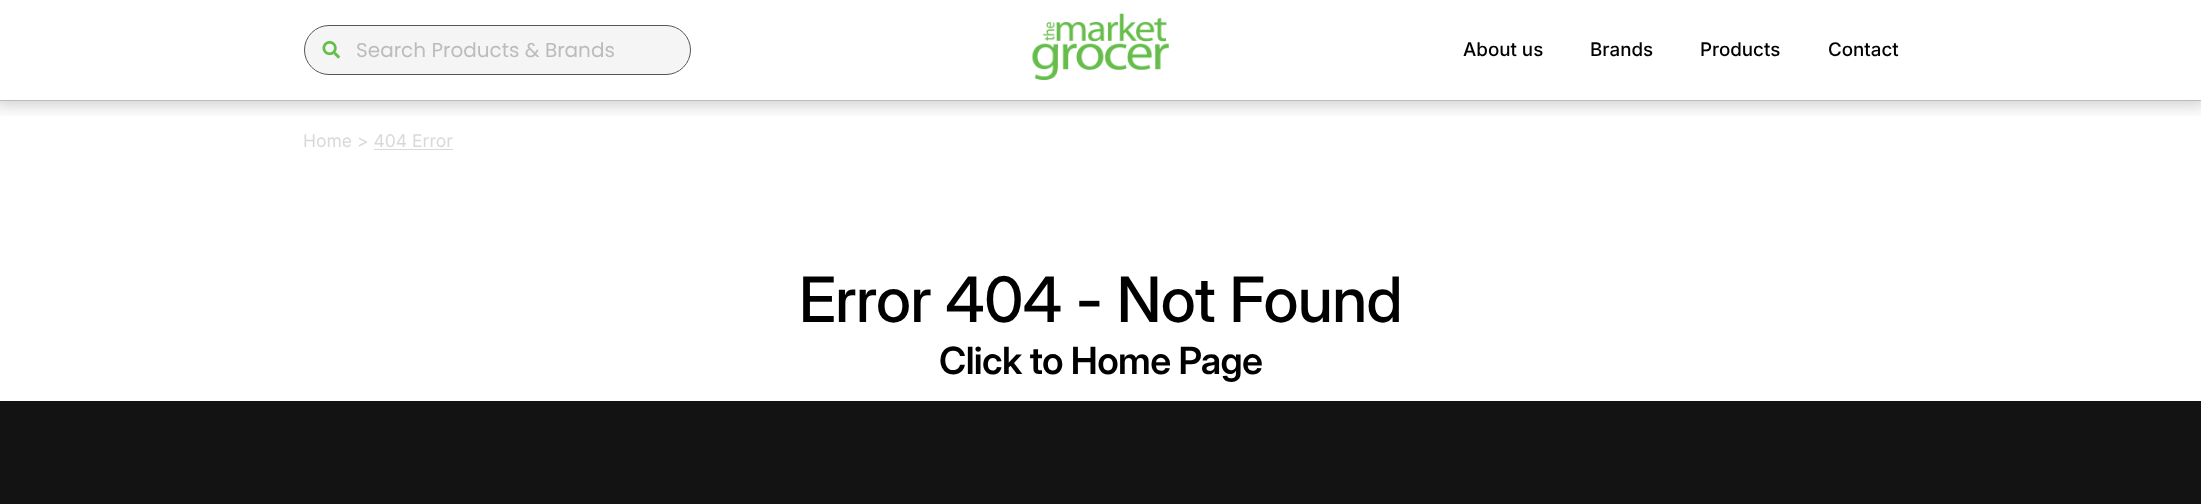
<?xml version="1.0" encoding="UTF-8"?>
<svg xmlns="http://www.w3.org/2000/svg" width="2201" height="504">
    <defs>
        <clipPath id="clip1"><rect x="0" y="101" width="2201" height="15"/></clipPath>
        <filter id="blur1" x="-50%" y="-200%" width="200%" height="500%"><feGaussianBlur stdDeviation="8"/></filter>
    </defs>
    <rect width="100%" height="100%" fill="#FFFFFF"/>
    <g clip-path="url(#clip1)">
        <rect x="-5" y="-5" width="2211" height="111" fill="#000000" fill-opacity="0.18" filter="url(#blur1)"/>
    </g>
    <rect x="0" y="100" width="2201" height="1" fill="#BCBCBD"/>
    <rect x="304.5" y="25.5" width="386" height="49" rx="24.5" fill="#F5F5F5" stroke="#565656"/>
    <image x="322" y="40" width="18" height="19" href="img_01.png"/>
    <text x="356" y="57" font-family="Poppins" font-size="20" fill="#BCBCBD">Search Products &amp; Brands</text>
    <image x="1032" y="13" width="137" height="67" href="img_02.png"/>
    <text x="1463" y="56" font-family="'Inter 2'" font-size="18.75" font-weight="500" fill="#000000">About us</text>
    <text x="1590" y="56" font-family="'Inter 2'" font-size="18.75" font-weight="500" fill="#000000">Brands</text>
    <text x="1700" y="56" font-family="'Inter 2'" font-size="18.75" font-weight="500" fill="#000000">Products</text>
    <text x="1828" y="56" font-family="'Inter 2'" font-size="18.75" font-weight="500" fill="#000000">Contact</text>
    <text x="303" y="147" font-family="Inter" font-size="17.5" fill="#D9D9D9">Home &gt; 404 Error</text>
    <rect x="374" y="149" width="79" height="1" fill="#D9D9D9"/>
    <text x="799" y="322" font-family="Inter" font-size="62.5" font-weight="500" letter-spacing="-0.6" fill="#000000">Error 404 - Not Found</text>
    <text x="939" y="374" font-family="Inter" font-size="37.5" font-weight="600" letter-spacing="-0.6" fill="#000000">Click to Home Page</text>
    <rect x="0" y="401" width="2201" height="103" fill="#131313"/>
</svg>
